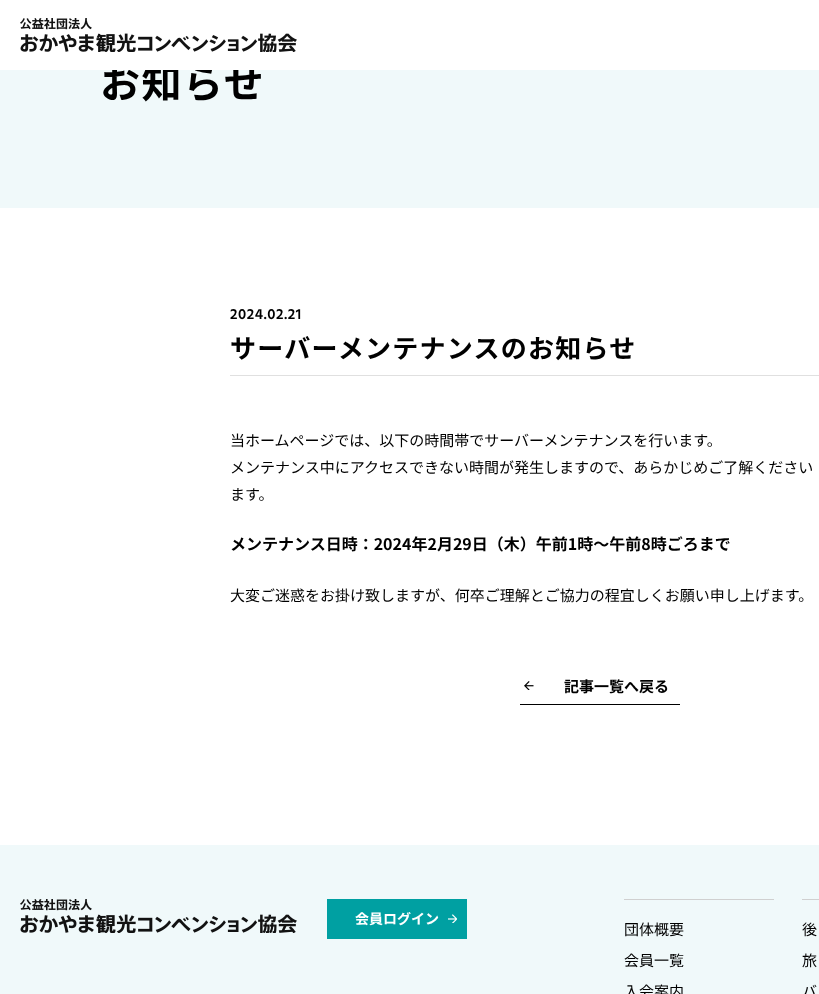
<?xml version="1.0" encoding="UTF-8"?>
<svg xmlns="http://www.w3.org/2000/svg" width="819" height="994">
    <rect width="100%" height="100%" fill="#FFFFFF"/>
    <rect x="0" y="70" width="819" height="138" fill="#F0F9FA"/>
    <text x="100" y="98" font-family="Noto Sans JP" font-size="40" font-weight="700" letter-spacing="1.5" fill="#000000">お知らせ</text>
    <rect x="111" y="64" width="144" height="6" fill="#FFFFFF"/>
    <image x="20" y="18" width="277" height="34" href="img_01.png"/>
    <text x="230" y="319" font-family="Hind" font-size="15" font-weight="600" letter-spacing="0.5" fill="#000000">2024.02.21</text>
    <rect x="230" y="375" width="589" height="1" fill="#E0E0E0"/>
    <text x="230" y="358" font-family="Noto Sans JP" font-size="26" font-weight="700" letter-spacing="1.25" fill="#000000">サーバーメンテナンスのお知らせ</text>
    <text font-family="Noto Sans JP" font-size="15" fill="#000000">
        <tspan x="230" y="446">当ホームページでは、以下の時間帯でサーバーメンテナンスを行います。</tspan>
        <tspan x="230" y="473">メンテナンス中にアクセスできない時間が発生しますので、あらかじめご了解ください</tspan>
        <tspan x="230" y="500">ます。</tspan>
    </text>
    <text x="230" y="550" font-family="Noto Sans JP" font-size="16" font-weight="700" fill="#000000">メンテナンス日時：2024年2月29日（木）午前1時～午前8時ごろまで</text>
    <text x="230" y="601" font-family="Noto Sans JP" font-size="15" fill="#000000">大変ご迷惑をお掛け致しますが、何卒ご理解とご協力の程宜しくお願い申し上げます。</text>
    <image x="524" y="681" width="10" height="9" href="img_02.png"/>
    <text x="564" y="692" font-family="Noto Sans JP" font-size="15" font-weight="700" fill="#000000">記事一覧へ戻る</text>
    <rect x="520" y="704" width="160" height="1" fill="#000000"/>
    <rect x="0" y="845" width="819" height="149" fill="#F0F9FA"/>
    <image x="20" y="899" width="277" height="34" href="img_03.png"/>
    <rect x="327" y="899" width="140" height="40" fill="#00A0A2"/>
    <text x="355" y="924" font-family="Noto Sans JP" font-size="14" font-weight="700" fill="#FFFFFF">会員ログイン</text>
    <image x="448" y="914" width="9" height="9" href="img_04.png"/>
    <rect x="624" y="899" width="150" height="1" fill="#D0D0D0"/>
    <text x="624" y="935" font-family="Noto Sans JP" font-size="15" fill="#000000">団体概要</text>
    <text x="624" y="966" font-family="Noto Sans JP" font-size="15" fill="#000000">会員一覧</text>
    <text x="624" y="997" font-family="Noto Sans JP" font-size="15" fill="#000000">入会案内</text>
    <rect x="802" y="899" width="17" height="1" fill="#D0D0D0"/>
    <text x="802" y="935" font-family="Noto Sans JP" font-size="15" fill="#000000">後</text>
    <text x="802" y="966" font-family="Noto Sans JP" font-size="15" fill="#000000">旅</text>
    <text x="802" y="997" font-family="Noto Sans JP" font-size="15" fill="#000000">バ</text>
</svg>
